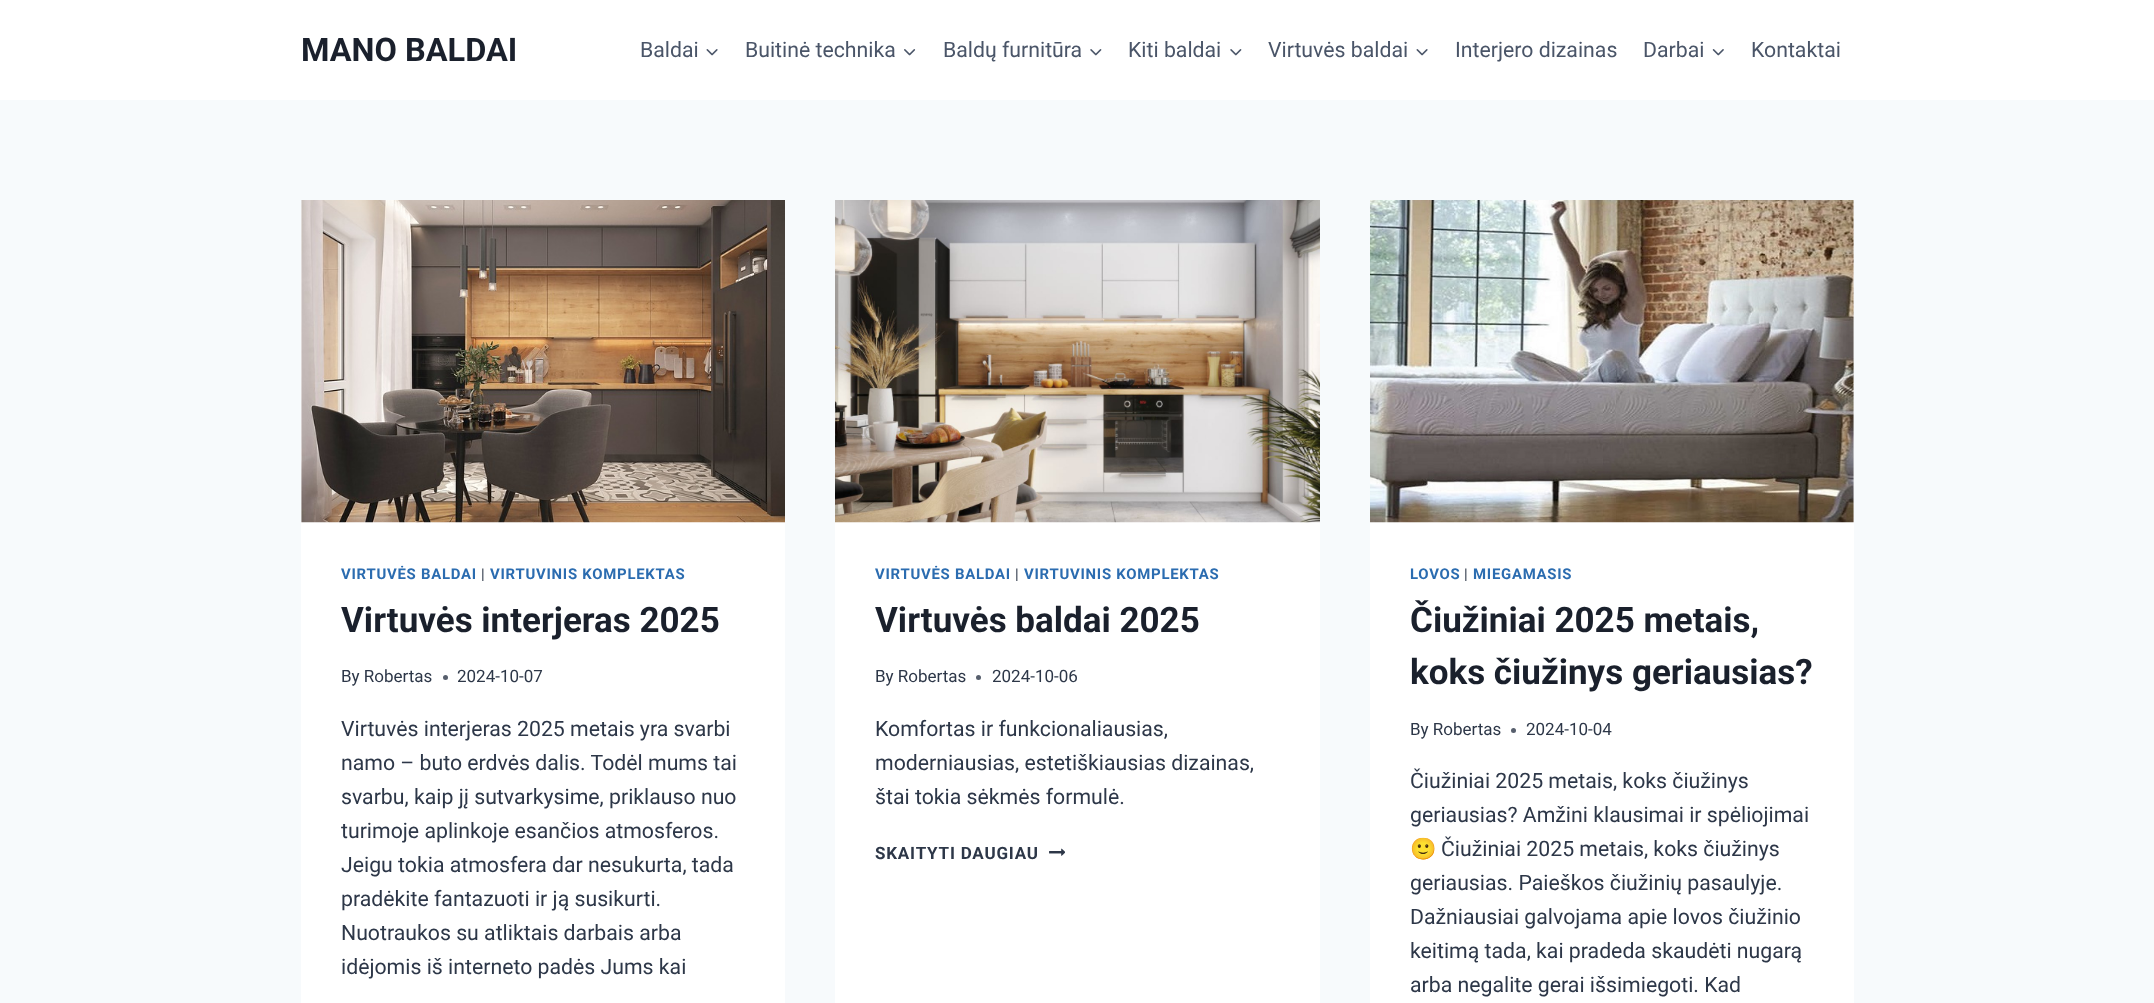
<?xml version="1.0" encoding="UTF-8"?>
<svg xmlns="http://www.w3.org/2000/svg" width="2154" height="1003">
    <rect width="100%" height="100%" fill="#F7FAFC"/>
    <rect x="0" y="0" width="2154" height="100" fill="#FFFFFF"/>
    <text x="301" y="61" font-family="Roboto" font-size="32.5" font-weight="700" fill="#1A202C">MANO BALDAI</text>
    <text x="640" y="57" font-family="Roboto" font-size="21.25" fill="#4A5568">Baldai</text>
    <image x="706" y="49" width="12" height="7" href="img_01.png"/>
    <text x="745" y="57" font-family="Roboto" font-size="21.25" fill="#4A5568">Buitinė technika</text>
    <image x="904" y="49" width="12" height="7" href="img_02.png"/>
    <text x="943" y="57" font-family="Roboto" font-size="21.25" fill="#4A5568">Baldų furnitūra</text>
    <image x="1090" y="49" width="12" height="7" href="img_03.png"/>
    <text x="1128" y="57" font-family="Roboto" font-size="21.25" fill="#4A5568">Kiti baldai</text>
    <image x="1230" y="49" width="12" height="7" href="img_03.png"/>
    <text x="1268" y="57" font-family="Roboto" font-size="21.25" fill="#4A5568">Virtuvės baldai</text>
    <image x="1416" y="49" width="12" height="7" href="img_01.png"/>
    <text x="1455" y="57" font-family="Roboto" font-size="21.25" fill="#4A5568">Interjero dizainas</text>
    <text x="1643" y="57" font-family="Roboto" font-size="21.25" fill="#4A5568">Darbai</text>
    <image x="1712" y="49" width="12" height="7" href="img_04.png"/>
    <text x="1751" y="57" font-family="Roboto" font-size="21.25" fill="#4A5568">Kontaktai</text>
    <rect x="301" y="200" width="484" height="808" rx="5" fill="#FFFFFF"/>
    <image x="301" y="200" width="484" height="323" href="img_05.png"/>
    <text x="341" y="579" font-family="Roboto" font-size="14.9" font-weight="700" letter-spacing="0.75" fill="#2B6CB0">VIRTUVĖS BALDAI</text>
    <text x="481" y="579" font-family="Roboto" font-size="14.9" letter-spacing="0.75" fill="#2D3748">|</text>
    <text x="490" y="579" font-family="Roboto" font-size="14.9" font-weight="700" letter-spacing="0.75" fill="#2B6CB0">VIRTUVINIS KOMPLEKTAS</text>
    <text x="341" y="632" font-family="Roboto" font-size="35" font-weight="700" fill="#1A202C">Virtuvės interjeras 2025</text>
    <text x="341" y="682" font-family="Roboto" font-size="17" fill="#2D3748">By Robertas</text>
    <circle cx="445.5" cy="677.5" r="2.5" fill="#575F6D"/>
    <text x="457" y="682" font-family="Roboto" font-size="17" fill="#2D3748">2024-10-07</text>
    <text font-family="Roboto" font-size="21.25" fill="#2D3748">
        <tspan x="341" y="736">Virtuvės interjeras 2025 metais yra svarbi</tspan>
        <tspan x="341" y="770">namo – buto erdvės dalis. Todėl mums tai</tspan>
        <tspan x="341" y="804">svarbu, kaip jį sutvarkysime, priklauso nuo</tspan>
        <tspan x="341" y="838">turimoje aplinkoje esančios atmosferos.</tspan>
        <tspan x="341" y="872">Jeigu tokia atmosfera dar nesukurta, tada</tspan>
        <tspan x="341" y="906">pradėkite fantazuoti ir ją susikurti.</tspan>
        <tspan x="341" y="940">Nuotraukos su atliktais darbais arba</tspan>
        <tspan x="341" y="974">idėjomis iš interneto padės Jums kai</tspan>
    </text>
    <rect x="835" y="522" width="485" height="481" fill="#FFFFFF"/>
    <image x="835" y="200" width="485" height="323" href="img_06.png"/>
    <text x="875" y="579" font-family="Roboto" font-size="14.9" font-weight="700" letter-spacing="0.75" fill="#2B6CB0">VIRTUVĖS BALDAI</text>
    <text x="1015" y="579" font-family="Roboto" font-size="14.9" letter-spacing="0.75" fill="#2D3748">|</text>
    <text x="1024" y="579" font-family="Roboto" font-size="14.9" font-weight="700" letter-spacing="0.75" fill="#2B6CB0">VIRTUVINIS KOMPLEKTAS</text>
    <text x="875" y="632" font-family="Roboto" font-size="35" font-weight="700" fill="#1A202C">Virtuvės baldai 2025</text>
    <text x="875" y="682" font-family="Roboto" font-size="17" fill="#2D3748">By Robertas</text>
    <circle cx="978.5" cy="677.5" r="2.5" fill="#575F6D"/>
    <text x="992" y="682" font-family="Roboto" font-size="17" fill="#2D3748">2024-10-06</text>
    <text font-family="Roboto" font-size="21.25" fill="#2D3748">
        <tspan x="875" y="736">Komfortas ir funkcionaliausias,</tspan>
        <tspan x="875" y="770">moderniausias, estetiškiausias dizainas,</tspan>
        <tspan x="875" y="804">štai tokia sėkmės formulė.</tspan>
    </text>
    <text x="875" y="859" font-family="Roboto" font-size="17" font-weight="700" letter-spacing="0.8" fill="#2D3748">SKAITYTI DAUGIAU</text>
    <image x="1049" y="848" width="16" height="8" href="img_07.png"/>
    <rect x="1370" y="200" width="484" height="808" rx="5" fill="#FFFFFF"/>
    <image x="1370" y="200" width="484" height="323" href="img_08.png"/>
    <text x="1410" y="579" font-family="Roboto" font-size="14.9" font-weight="700" letter-spacing="0.75" fill="#2B6CB0">LOVOS</text>
    <text x="1464" y="579" font-family="Roboto" font-size="14.9" letter-spacing="0.75" fill="#2D3748">|</text>
    <text x="1473" y="579" font-family="Roboto" font-size="14.9" font-weight="700" letter-spacing="0.75" fill="#2B6CB0">MIEGAMASIS</text>
    <text font-family="Roboto" font-size="35" font-weight="700" fill="#1A202C">
        <tspan x="1410" y="632">Čiužiniai 2025 metais,</tspan>
        <tspan x="1410" y="684">koks čiužinys geriausias?</tspan>
    </text>
    <text x="1410" y="735" font-family="Roboto" font-size="17" fill="#2D3748">By Robertas</text>
    <circle cx="1513.5" cy="730.5" r="2.5" fill="#575F6D"/>
    <text x="1526" y="735" font-family="Roboto" font-size="17" fill="#2D3748">2024-10-04</text>
    <text font-family="Roboto" font-size="21.25" fill="#2D3748">
        <tspan x="1410" y="788">Čiužiniai 2025 metais, koks čiužinys</tspan>
        <tspan x="1410" y="822">geriausias? Amžini klausimai ir spėliojimai</tspan>
    </text>
    <text x="1410" y="856" font-family="Noto Color Emoji" font-size="21.25" fill="#2D3748">🙂</text>
    <text x="1441" y="856" font-family="Roboto" font-size="21.25" fill="#2D3748">Čiužiniai 2025 metais, koks čiužinys</text>
    <text font-family="Roboto" font-size="21.25" fill="#2D3748">
        <tspan x="1410" y="890">geriausias. Paieškos čiužinių pasaulyje.</tspan>
        <tspan x="1410" y="924">Dažniausiai galvojama apie lovos čiužinio</tspan>
        <tspan x="1410" y="958">keitimą tada, kai pradeda skaudėti nugarą</tspan>
        <tspan x="1410" y="992">arba negalite gerai išsimiegoti. Kad</tspan>
    </text>
</svg>
